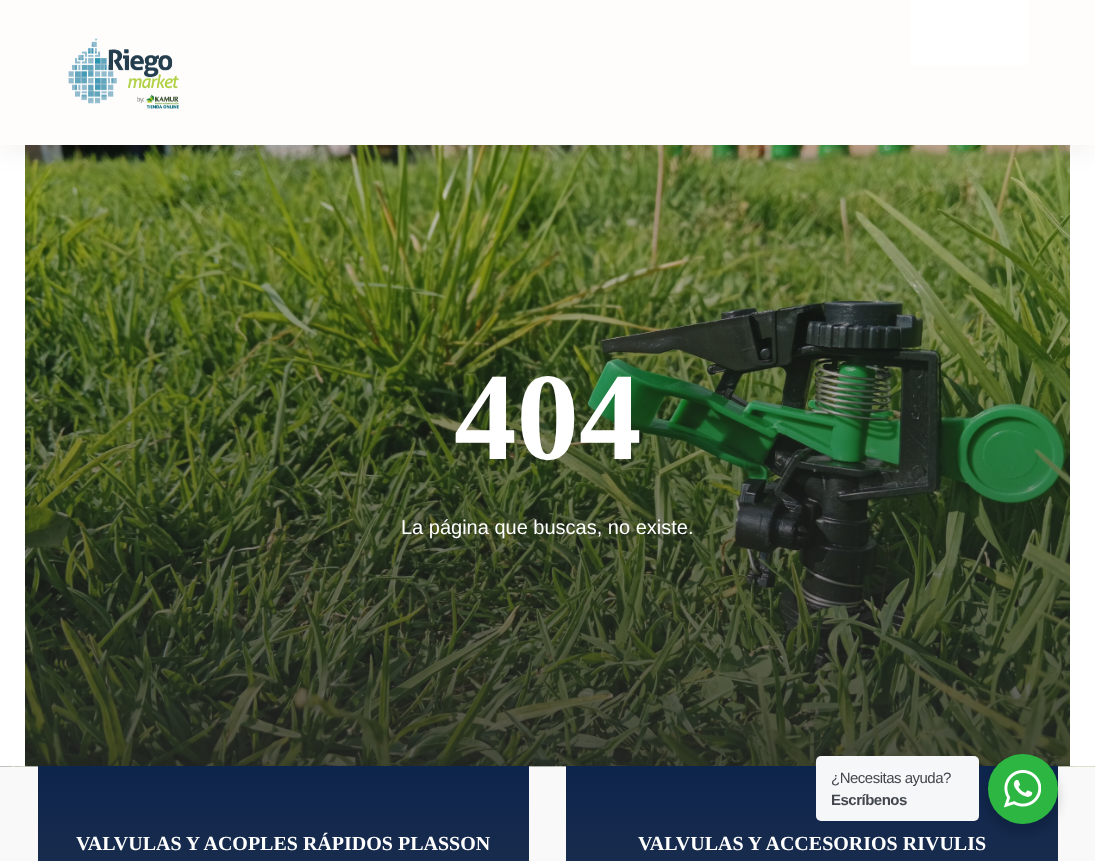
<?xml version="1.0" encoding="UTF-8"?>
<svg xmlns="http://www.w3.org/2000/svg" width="1095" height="861">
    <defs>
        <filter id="blur1" x="-50%" y="-200%" width="200%" height="500%"><feGaussianBlur stdDeviation="12.5"/></filter>
        <linearGradient id="g1" gradientUnits="userSpaceOnUse" x1="283" y1="766" x2="283" y2="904"><stop offset="0" stop-color="#0D244C"/><stop offset="1" stop-color="#1D2F4E"/></linearGradient>
        <linearGradient id="g2" gradientUnits="userSpaceOnUse" x1="812" y1="766" x2="812" y2="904"><stop offset="0" stop-color="#0D244C"/><stop offset="1" stop-color="#1D2F4E"/></linearGradient>
        <filter id="blur2" x="-50%" y="-200%" width="200%" height="500%"><feGaussianBlur stdDeviation="5"/></filter>
    </defs>
    <rect width="100%" height="100%" fill="#F9F9F9"/>
    <image x="0" y="145" width="1095" height="622" href="img_02.png"/>
    <rect x="1070" y="145" width="25" height="621" fill="#FFFFFF"/>
    <rect x="0" y="145" width="25" height="621" fill="#FFFFFF"/>
    <rect x="0" y="6" width="1095" height="145" fill="#5B2D00" fill-opacity="0.06" filter="url(#blur1)"/>
    <rect x="0" y="0" width="1095" height="145" fill="#FFFDFC"/>
    <image x="68" y="38" width="111" height="71" href="img_01.png"/>
    <rect x="911" y="0" width="118" height="65" fill="#FFFFFF"/>
    <text x="454" y="459" font-family="Liberation Serif" font-size="125" font-weight="700" fill="#FFFFFF">404</text>
    <text x="401" y="534" font-family="Liberation Sans" font-size="20" fill="#FFFFFF">La página que buscas, no existe.</text>
    <rect x="38" y="766" width="491" height="95" fill="url(#g1)"/>
    <text x="76" y="850" font-family="Liberation Serif" font-size="20" font-weight="700" fill="#FFFFFF">VALVULAS Y ACOPLES RÁPIDOS PLASSON</text>
    <rect x="566" y="766" width="492" height="95" fill="url(#g2)"/>
    <text x="638" y="850" font-family="Liberation Serif" font-size="20" font-weight="700" fill="#FFFFFF">VALVULAS Y ACCESORIOS RIVULIS</text>
    <rect x="985" y="759" width="75" height="75" rx="37.5" fill="#000000" fill-opacity="0.14" filter="url(#blur2)"/>
    <rect x="816" y="756" width="163" height="65" rx="5" fill="#F5F7F9"/>
    <text x="831" y="783" font-family="Liberation Sans" font-size="15" letter-spacing="-0.5" fill="#43474E">¿Necesitas ayuda?</text>
    <text x="831" y="805" font-family="Liberation Sans" font-size="15" font-weight="700" letter-spacing="-0.5" fill="#43474E">Escríbenos</text>
    <circle cx="1023" cy="789" r="35" fill="#2DB742"/>
    <image x="1004" y="770" width="37" height="38" href="img_03.png"/>
</svg>
